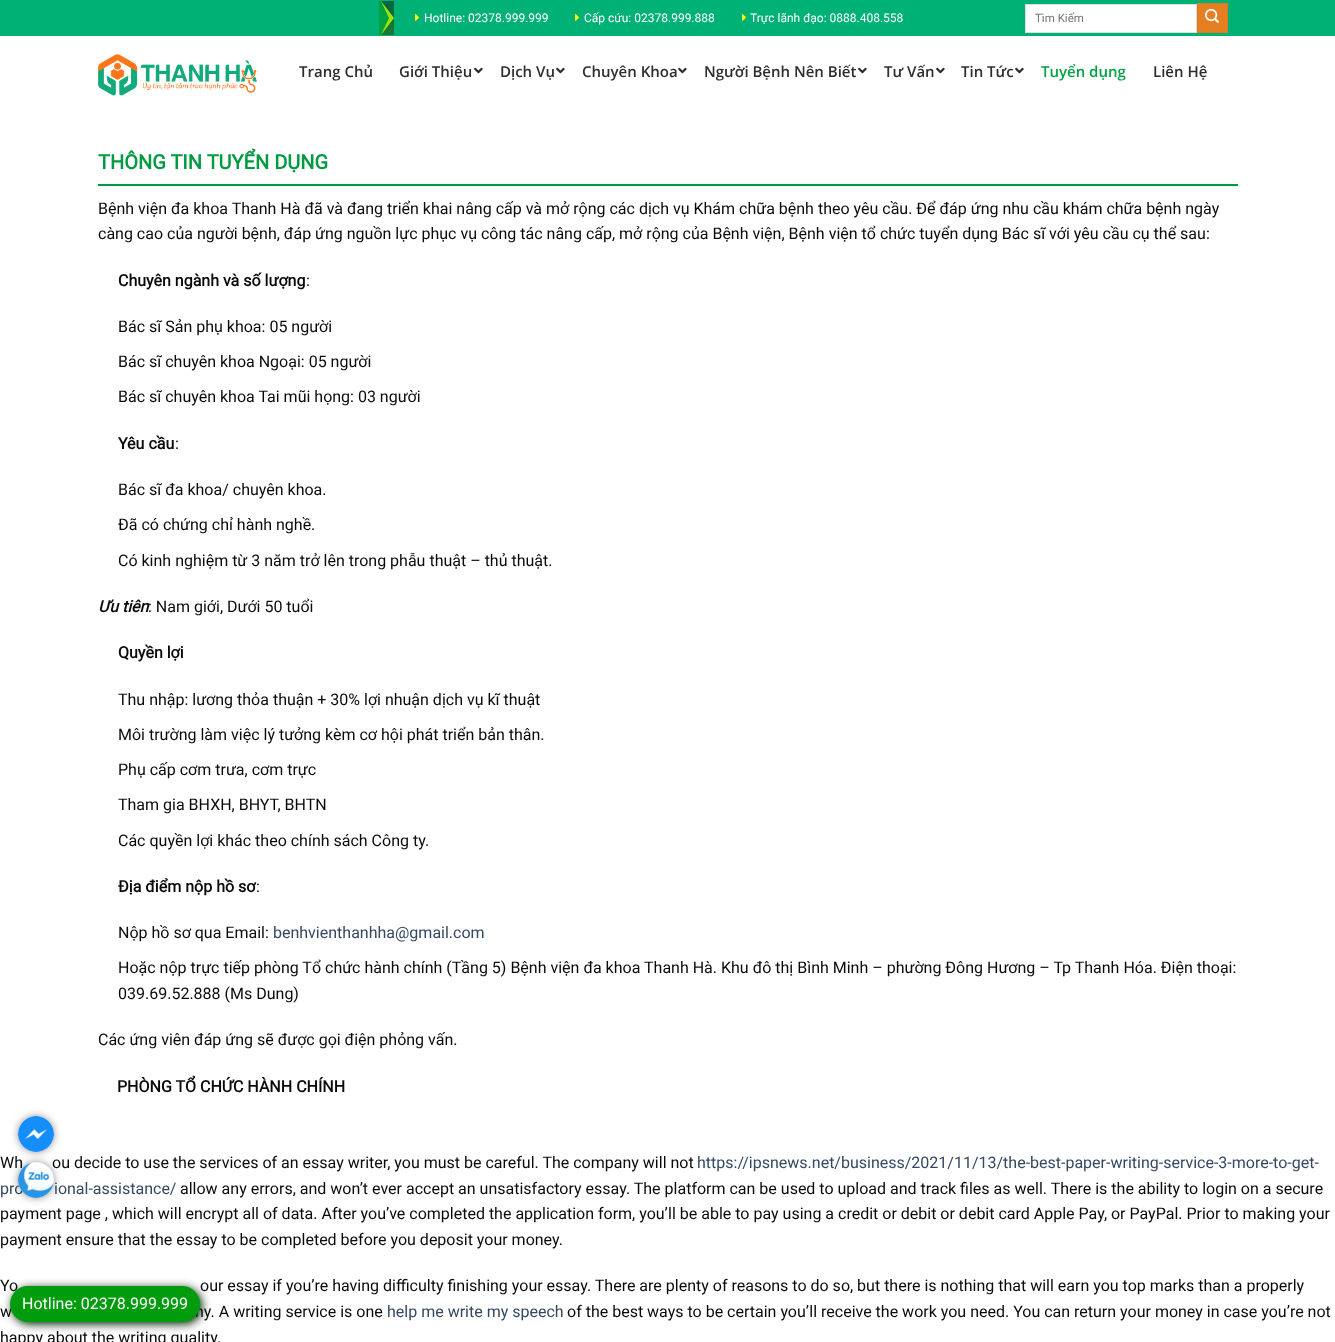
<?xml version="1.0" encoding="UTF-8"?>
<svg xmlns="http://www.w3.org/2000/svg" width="1335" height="1342">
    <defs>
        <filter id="blur1" x="-50%" y="-200%" width="200%" height="500%"><feGaussianBlur stdDeviation="5"/></filter>
    </defs>
    <rect width="100%" height="100%" fill="#FFFFFF"/>
    <rect x="0" y="0" width="1335" height="36" fill="#00B176"/>
    <image x="379" y="1" width="15" height="34" href="img_01.png"/>
    <image x="415" y="14" width="4" height="7" href="img_02.png"/>
    <text x="424" y="22" font-family="Roboto" font-size="12" fill="#FFFFFF">Hotline: 02378.999.999</text>
    <image x="575" y="14" width="4" height="7" href="img_02.png"/>
    <text x="584" y="22" font-family="Roboto" font-size="12" fill="#FFFFFF">Cấp cứu: 02378.999.888</text>
    <image x="742" y="14" width="4" height="7" href="img_02.png"/>
    <text x="750" y="22" font-family="Roboto" font-size="12" fill="#FFFFFF">Trực lãnh đạo: 0888.408.558</text>
    <rect x="1025.5" y="4.5" width="171" height="28" fill="#FFFFFF" stroke="#DDDDDD"/>
    <text x="1035" y="22" font-family="Roboto" font-size="11.5" fill="#757575">Tìm Kiếm</text>
    <rect x="1197.5" y="3.5" width="30" height="29" fill="#E67E22" stroke="#DB7820"/>
    <image x="1205" y="8" width="14" height="15" href="img_03.png"/>
    <image x="98" y="54" width="159" height="42" href="img_04.png"/>
    <text x="299" y="77" font-family="Open Sans" font-size="15" font-weight="600" fill="#2D2D2D">Trang Chủ</text>
    <text x="399" y="77" font-family="Open Sans" font-size="15" font-weight="600" fill="#2D2D2D">Giới Thiệu</text>
    <image x="474" y="67" width="9" height="7" href="img_05.png"/>
    <text x="500" y="77" font-family="Open Sans" font-size="15" font-weight="600" fill="#2D2D2D">Dịch Vụ</text>
    <image x="556" y="67" width="9" height="7" href="img_05.png"/>
    <text x="582" y="77" font-family="Open Sans" font-size="15" font-weight="600" fill="#2D2D2D">Chuyên Khoa</text>
    <image x="678" y="67" width="9" height="7" href="img_05.png"/>
    <text x="704" y="77" font-family="Open Sans" font-size="15" font-weight="600" fill="#2D2D2D">Người Bệnh Nên Biết</text>
    <image x="858" y="67" width="9" height="7" href="img_05.png"/>
    <text x="884" y="77" font-family="Open Sans" font-size="15" font-weight="600" fill="#2D2D2D">Tư Vấn</text>
    <image x="936" y="67" width="9" height="7" href="img_05.png"/>
    <text x="961" y="77" font-family="Open Sans" font-size="15" font-weight="600" fill="#2D2D2D">Tin Tức</text>
    <image x="1015" y="67" width="9" height="7" href="img_05.png"/>
    <text x="1041" y="77" font-family="Open Sans" font-size="15" font-weight="600" fill="#00A244">Tuyển dụng</text>
    <text x="1153" y="77" font-family="Open Sans" font-size="15" font-weight="600" fill="#2D2D2D">Liên Hệ</text>
    <rect x="98" y="184" width="1140" height="2" fill="#009A41"/>
    <text x="98" y="169" font-family="Roboto" font-size="20" font-weight="700" fill="#009A41">THÔNG TIN TUYỂN DỤNG</text>
    <text font-family="Roboto" font-size="16" fill="#0A0A0A">
        <tspan x="98" y="214">Bệnh viện đa khoa Thanh Hà đã và đang triển khai nâng cấp và mở rộng các dịch vụ Khám chữa bệnh theo yêu cầu. Để đáp ứng nhu cầu khám chữa bệnh ngày</tspan>
        <tspan x="98" y="239">càng cao của người bệnh, đáp ứng nguồn lực phục vụ công tác nâng cấp, mở rộng của Bệnh viện, Bệnh viện tổ chức tuyển dụng Bác sĩ với yêu cầu cụ thể sau:</tspan>
    </text>
    <text x="118" y="286" font-family="Roboto" font-size="16" font-weight="700" fill="#0A0A0A">Chuyên ngành và số lượng</text>
    <text x="306" y="286" font-family="Roboto" font-size="16" fill="#0A0A0A">:</text>
    <text x="118" y="332" font-family="Roboto" font-size="16" fill="#0A0A0A">Bác sĩ Sản phụ khoa: 05 người</text>
    <text x="118" y="367" font-family="Roboto" font-size="16" fill="#0A0A0A">Bác sĩ chuyên khoa Ngoại: 05 người</text>
    <text x="118" y="402" font-family="Roboto" font-size="16" fill="#0A0A0A">Bác sĩ chuyên khoa Tai mũi họng: 03 người</text>
    <text x="118" y="449" font-family="Roboto" font-size="16" font-weight="700" fill="#0A0A0A">Yêu cầu</text>
    <text x="175" y="449" font-family="Roboto" font-size="16" fill="#0A0A0A">:</text>
    <text x="118" y="495" font-family="Roboto" font-size="16" fill="#0A0A0A">Bác sĩ đa khoa/ chuyên khoa.</text>
    <text x="118" y="530" font-family="Roboto" font-size="16" fill="#0A0A0A">Đã có chứng chỉ hành nghề.</text>
    <text x="118" y="566" font-family="Roboto" font-size="16" fill="#0A0A0A">Có kinh nghiệm từ 3 năm trở lên trong phẫu thuật – thủ thuật.</text>
    <text x="98" y="612" font-family="Roboto" font-size="16" font-weight="700" font-style="italic" fill="#0A0A0A">Ưu tiên</text>
    <text x="148" y="612" font-family="Roboto" font-size="16" fill="#0A0A0A">: Nam giới, Dưới 50 tuổi</text>
    <text x="118" y="658" font-family="Roboto" font-size="16" font-weight="700" fill="#0A0A0A">Quyền lợi</text>
    <text x="118" y="705" font-family="Roboto" font-size="16" fill="#0A0A0A">Thu nhập: lương thỏa thuận + 30% lợi nhuận dịch vụ kĩ thuật</text>
    <text x="118" y="740" font-family="Roboto" font-size="16" fill="#0A0A0A">Môi trường làm việc lý tưởng kèm cơ hội phát triển bản thân.</text>
    <text x="118" y="775" font-family="Roboto" font-size="16" fill="#0A0A0A">Phụ cấp cơm trưa, cơm trực</text>
    <text x="118" y="810" font-family="Roboto" font-size="16" fill="#0A0A0A">Tham gia BHXH, BHYT, BHTN</text>
    <text x="118" y="846" font-family="Roboto" font-size="16" fill="#0A0A0A">Các quyền lợi khác theo chính sách Công ty.</text>
    <text x="118" y="892" font-family="Roboto" font-size="16" font-weight="700" fill="#0A0A0A">Địa điểm nộp hồ sơ</text>
    <text x="256" y="892" font-family="Roboto" font-size="16" fill="#0A0A0A">:</text>
    <text x="118" y="938" font-family="Roboto" font-size="16" fill="#0A0A0A">Nộp hồ sơ qua Email:</text>
    <text x="273" y="938" font-family="Roboto" font-size="16" fill="#334862">benhvienthanhha@gmail.com</text>
    <text font-family="Roboto" font-size="16" fill="#0A0A0A">
        <tspan x="118" y="973">Hoặc nộp trực tiếp phòng Tổ chức hành chính (Tầng 5) Bệnh viện đa khoa Thanh Hà. Khu đô thị Bình Minh – phường Đông Hương – Tp Thanh Hóa. Điện thoại:</tspan>
        <tspan x="118" y="999">039.69.52.888 (Ms Dung)</tspan>
    </text>
    <text x="98" y="1045" font-family="Roboto" font-size="16" fill="#0A0A0A">Các ứng viên đáp ứng sẽ được gọi điện phỏng vấn.</text>
    <text x="117" y="1092" font-family="Roboto" font-size="16" font-weight="700" fill="#0A0A0A">PHÒNG TỔ CHỨC HÀNH CHÍNH</text>
    <text x="0" y="1168" font-family="Roboto" font-size="16" fill="#0A0A0A">Wh</text>
    <text x="52" y="1168" font-family="Roboto" font-size="16" fill="#0A0A0A">ou decide to use the services of an essay writer, you must be careful. The company will not</text>
    <text x="697" y="1168" font-family="Roboto" font-size="16" fill="#334862">https://ipsnews.net/business/2021/11/13/the-best-paper-writing-service-3-more-to-get-</text>
    <text x="0" y="1194" font-family="Roboto" font-size="16" fill="#334862">pro</text>
    <text x="54" y="1194" font-family="Roboto" font-size="16" fill="#334862">ional-assistance/</text>
    <text x="180" y="1194" font-family="Roboto" font-size="16" fill="#0A0A0A">allow any errors, and won’t ever accept an unsatisfactory essay. The platform can be used to upload and track files as well. There is the ability to login on a secure</text>
    <text font-family="Roboto" font-size="16" fill="#0A0A0A">
        <tspan x="0" y="1219">payment page , which will encrypt all of data. After you’ve completed the application form, you’ll be able to pay using a credit or debit or debit card Apple Pay, or PayPal. Prior to making your</tspan>
        <tspan x="0" y="1245">payment ensure that the essay to be completed before you deposit your money.</tspan>
    </text>
    <text x="0" y="1291" font-family="Roboto" font-size="16" fill="#0A0A0A">Yo</text>
    <text x="200" y="1291" font-family="Roboto" font-size="16" fill="#0A0A0A">our essay if you’re having difficulty finishing your essay. There are plenty of reasons to do so, but there is nothing that will earn you top marks than a properly</text>
    <text x="0" y="1317" font-family="Roboto" font-size="16" fill="#0A0A0A">w</text>
    <text x="195" y="1317" font-family="Roboto" font-size="16" fill="#0A0A0A">ny. A writing service is one</text>
    <text x="387" y="1317" font-family="Roboto" font-size="16" fill="#334862">help me write my speech</text>
    <text x="567" y="1317" font-family="Roboto" font-size="16" fill="#0A0A0A">of the best ways to be certain you’ll receive the work you need. You can return your money in case you’re not</text>
    <text x="0" y="1343" font-family="Roboto" font-size="16" fill="#0A0A0A">happy about the writing quality.</text>
    <rect x="20" y="1118" width="32" height="32" rx="16" fill="#000000" fill-opacity="0.7" filter="url(#blur1)"/>
    <image x="18" y="1116" width="36" height="36" href="img_06.png"/>
    <rect x="20" y="1164" width="32" height="32" rx="16" fill="#000000" fill-opacity="0.7" filter="url(#blur1)"/>
    <image x="18" y="1162" width="36" height="36" href="img_07.png"/>
    <rect x="12" y="1288" width="190" height="36" rx="18" fill="#002303" filter="url(#blur1)"/>
    <rect x="10" y="1286" width="190" height="36" rx="18" fill="#009C0E"/>
    <text x="22" y="1309" font-family="Roboto" font-size="16" fill="#FFFFFF">Hotline: 02378.999.999</text>
</svg>
